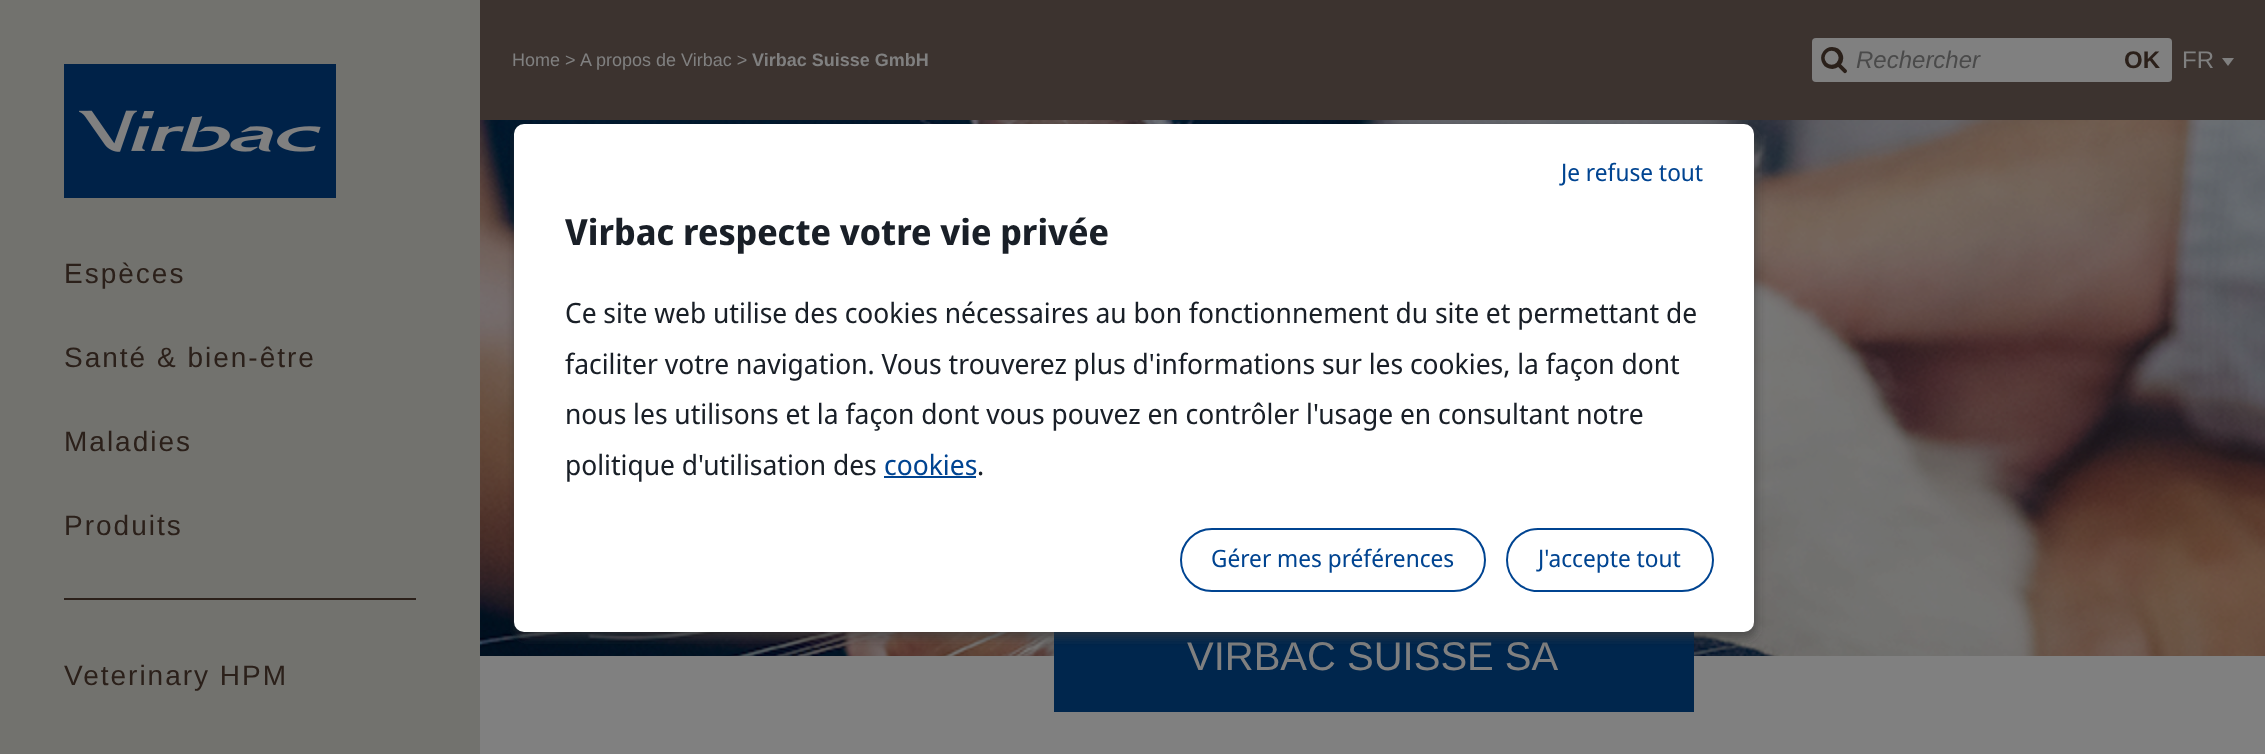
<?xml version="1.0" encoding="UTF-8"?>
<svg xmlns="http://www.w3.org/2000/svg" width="2265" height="754">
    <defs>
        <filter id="blur1" x="-50%" y="-200%" width="200%" height="500%"><feGaussianBlur stdDeviation="5"/></filter>
    </defs>
    <rect width="100%" height="100%" fill="#808080"/>
    <rect x="480" y="0" width="1785" height="120" fill="#3C332F"/>
    <text x="512" y="66" font-family="Liberation Sans" font-size="18" fill="#808080">Home &gt;</text>
    <text x="580" y="66" font-family="Liberation Sans" font-size="18" fill="#808080">A propos de Virbac &gt;</text>
    <text x="752" y="66" font-family="Liberation Sans" font-size="18" font-weight="700" fill="#808080">Virbac Suisse GmbH</text>
    <rect x="1812" y="38" width="360" height="44" rx="4" fill="#808080"/>
    <image x="1821" y="47" width="26" height="27" href="img_01.png"/>
    <text x="1856" y="68" font-family="Liberation Sans" font-size="24" font-style="italic" fill="#4A4A4A">Rechercher</text>
    <text x="2124" y="68" font-family="Liberation Sans" font-size="24" font-weight="700" fill="#2B201A">OK</text>
    <text x="2182" y="68" font-family="Liberation Sans" font-size="24" fill="#808080">FR</text>
    <path d="M 2222 58 H 2234 L 2228 66 Z" fill="#808080"/>
    <rect x="0" y="0" width="480" height="754" fill="#72726E"/>
    <image x="64" y="64" width="272" height="134" href="img_02.png"/>
    <text x="64" y="283" font-family="Liberation Sans" font-size="28" letter-spacing="2" fill="#2B201A">Espèces</text>
    <text x="64" y="367" font-family="Liberation Sans" font-size="28" letter-spacing="2" fill="#2B201A">Santé &amp; bien-être</text>
    <text x="64" y="451" font-family="Liberation Sans" font-size="28" letter-spacing="2" fill="#2B201A">Maladies</text>
    <text x="64" y="535" font-family="Liberation Sans" font-size="28" letter-spacing="2" fill="#2B201A">Produits</text>
    <rect x="64" y="598" width="352" height="2" fill="#2B201A"/>
    <text x="64" y="685" font-family="Liberation Sans" font-size="28" letter-spacing="2" fill="#2B201A">Veterinary HPM</text>
    <image x="480" y="120" width="1785" height="536" href="img_03.png"/>
    <rect x="1054" y="632" width="640" height="80" fill="#00264D"/>
    <text x="1187" y="670" font-family="Liberation Sans" font-size="40" fill="#808080">VIRBAC SUISSE SA</text>
    <rect x="516" y="130" width="1240" height="508" rx="10" fill="#383838" fill-opacity="0.6" filter="url(#blur1)"/>
    <rect x="514" y="124" width="1240" height="508" rx="10" fill="#FFFFFF"/>
    <text x="1561" y="181" font-family="Noto Sans Display" font-size="24" fill="#004491">Je refuse tout</text>
    <rect x="1181" y="529" width="304" height="62" rx="31" fill="none" stroke="#004491" stroke-width="2"/>
    <text x="1211" y="567" font-family="Noto Sans Display" font-size="24" fill="#004491">Gérer mes préférences</text>
    <rect x="1507" y="529" width="206" height="62" rx="31" fill="none" stroke="#004491" stroke-width="2"/>
    <text x="1538" y="567" font-family="Noto Sans Display" font-size="24" fill="#004491">J'accepte tout</text>
    <text x="565" y="245" font-family="Noto Sans Display" font-size="36" font-weight="700" fill="#191F27">Virbac respecte votre vie privée</text>
    <text font-family="Noto Sans Display" font-size="28" fill="#191F27">
        <tspan x="565" y="323">Ce site web utilise des cookies nécessaires au bon fonctionnement du site et permettant de</tspan>
        <tspan x="565" y="374">faciliter votre navigation. Vous trouverez plus d'informations sur les cookies, la façon dont</tspan>
        <tspan x="565" y="424">nous les utilisons et la façon dont vous pouvez en contrôler l'usage en consultant notre</tspan>
        <tspan x="565" y="475">politique d'utilisation des</tspan>
    </text>
    <text x="884" y="475" font-family="Noto Sans Display" font-size="28" fill="#004491">cookies</text>
    <rect x="884" y="476" width="92" height="2" fill="#004491"/>
    <text x="977" y="475" font-family="Noto Sans Display" font-size="28" fill="#191F27">.</text>
</svg>
